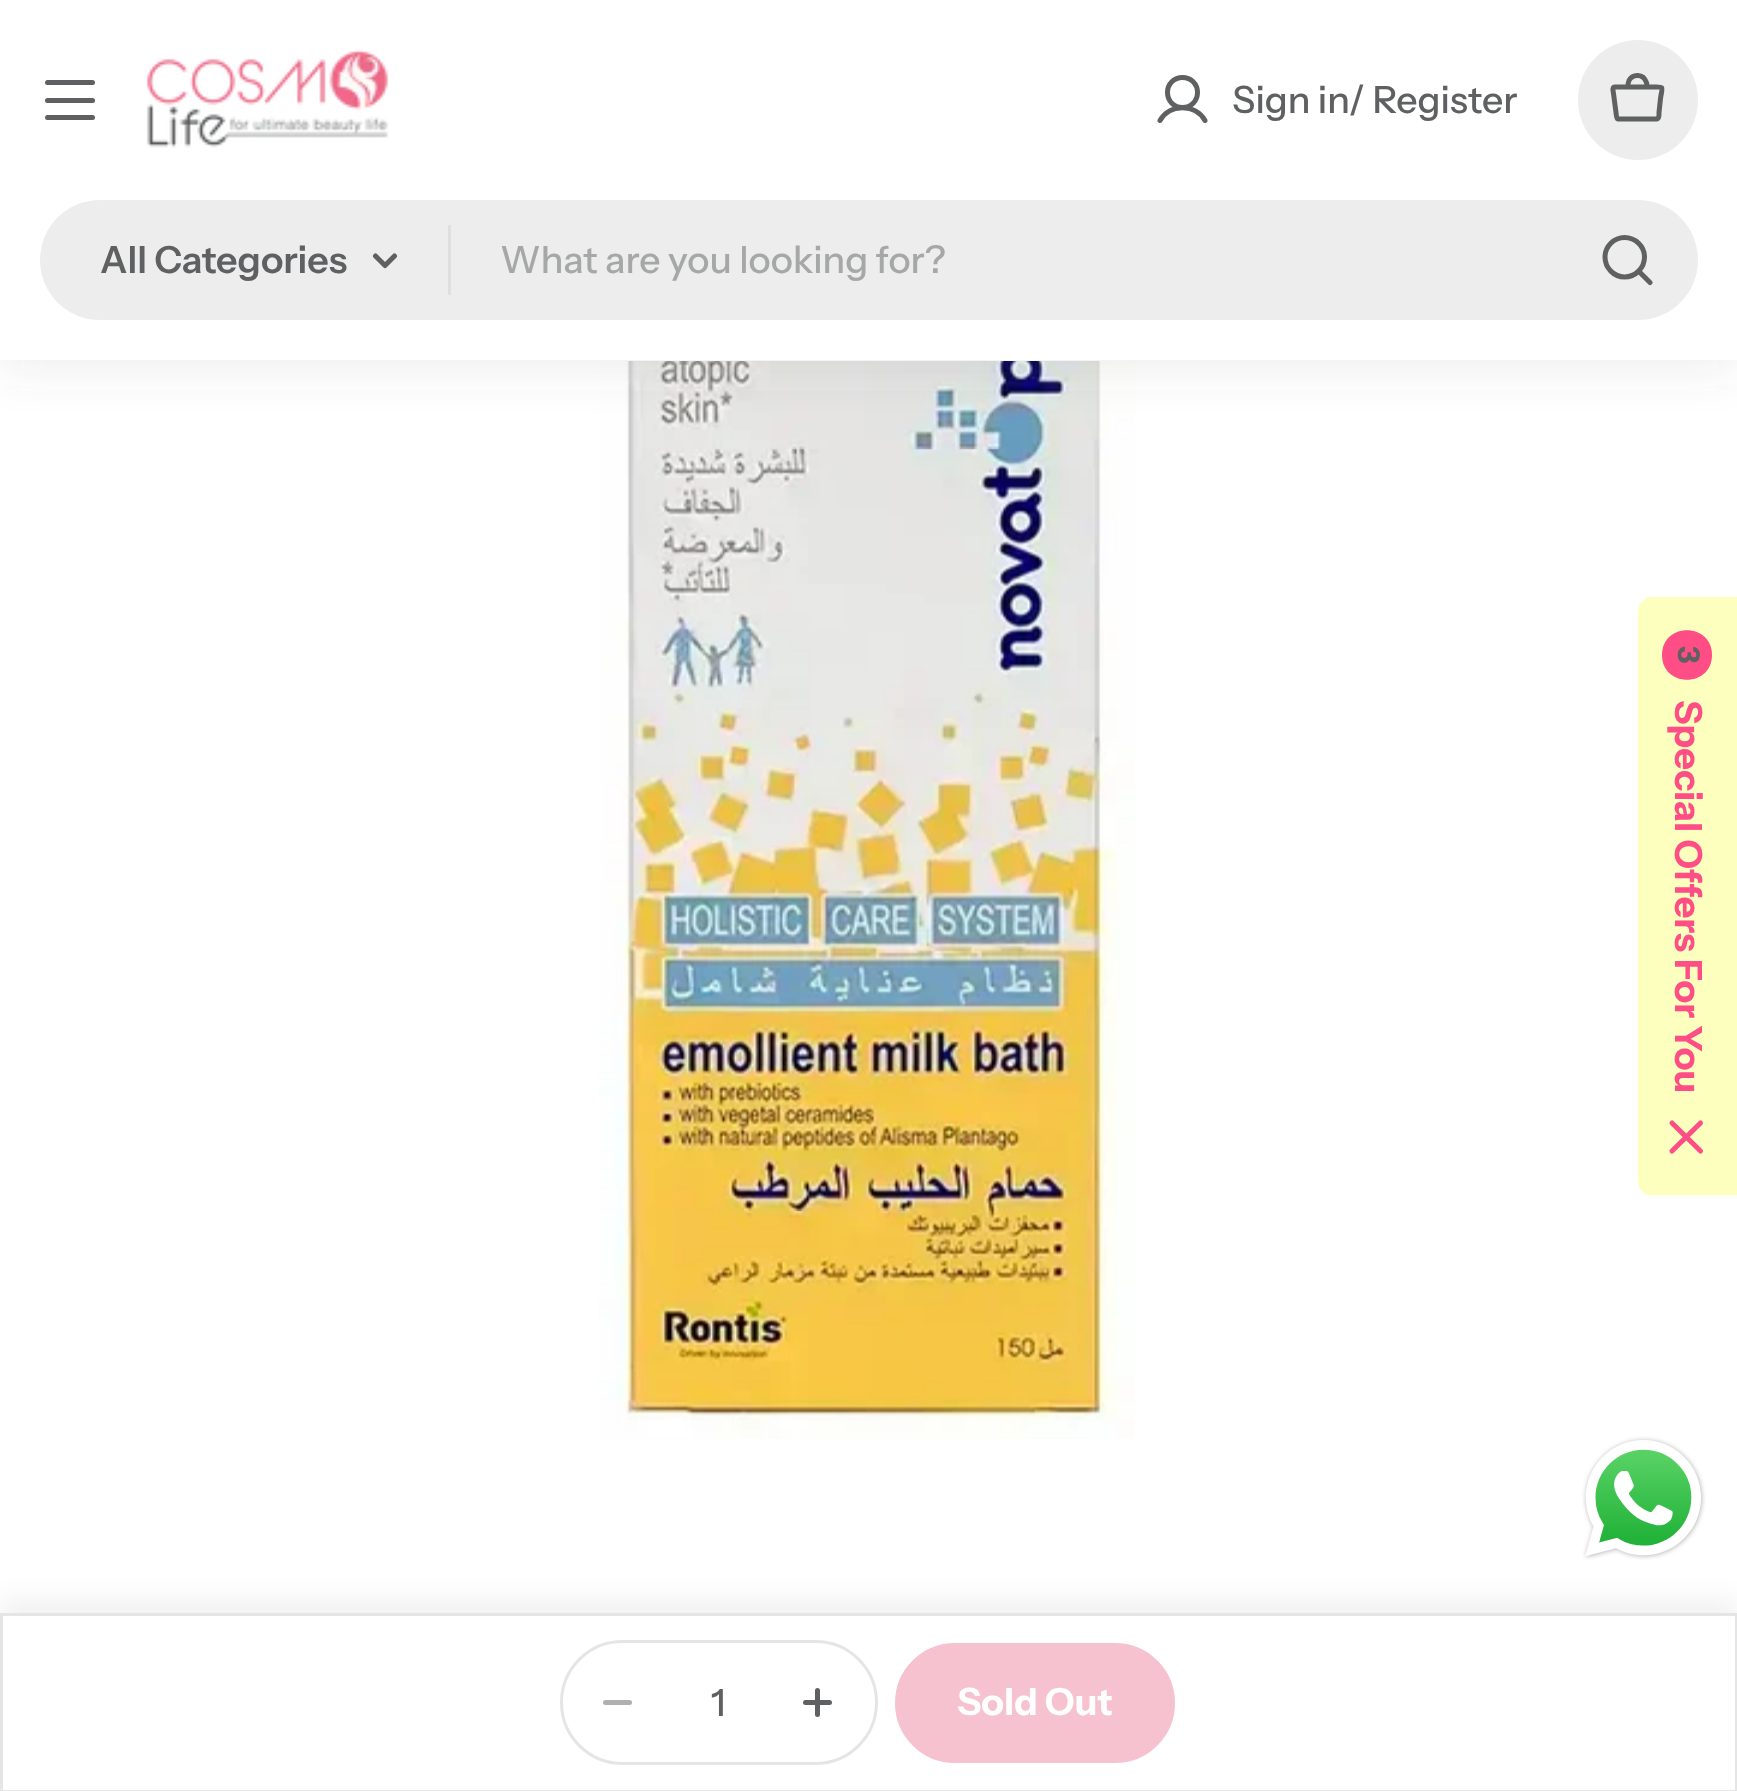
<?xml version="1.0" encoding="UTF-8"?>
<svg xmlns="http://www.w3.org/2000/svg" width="1737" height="1791">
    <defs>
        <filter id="blur1" x="-50%" y="-200%" width="200%" height="500%"><feGaussianBlur stdDeviation="22.5"/></filter>
        <filter id="blur2" x="-50%" y="-200%" width="200%" height="500%"><feGaussianBlur stdDeviation="12.5"/></filter>
    </defs>
    <rect width="100%" height="100%" fill="#FFFFFF"/>
    <image x="599" y="361" width="536" height="1078" href="img_02.png"/>
    <rect x="0" y="10" width="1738" height="360" fill="#5F6061" fill-opacity="0.1" filter="url(#blur1)"/>
    <rect x="0" y="0" width="1737" height="360" fill="#FFFFFF"/>
    <rect x="45" y="98" width="50" height="5" rx="2.5" fill="#5F6061"/>
    <rect x="45" y="80" width="50" height="5" rx="2.5" fill="#5F6061"/>
    <rect x="45" y="115" width="50" height="5" rx="2.5" fill="#5F6061"/>
    <image x="146" y="49" width="243" height="99" href="img_01.png"/>
    <path d="M 1182.5 107.5 C 1191 107.5 1197.5 101 1197.5 92.5 C 1197.5 84 1191 77.5 1182.5 77.5 C 1174 77.5 1167.5 84 1167.5 92.5 C 1167.5 101 1174 107.5 1182.5 107.5 Z M 1160 120.5 C 1169.5 103.5 1195.5 103.5 1205 120.5" fill="none" stroke="#5F6061" stroke-width="5" stroke-linecap="round" stroke-linejoin="round"/>
    <text x="1232" y="113" font-family="Instrument Sans" font-size="37.5" font-weight="500" fill="#5F6061">Sign in/ Register</text>
    <circle cx="1638" cy="100" r="60" fill="#EDEDED"/>
    <path d="M 1656.5 119 H 1624.5 C 1616 119 1617 120.5 1616 112.5 L 1613.5 93.5 C 1613.5 92.5 1611.5 87 1615 87 H 1652.5 C 1664.5 87 1662.5 85.5 1660.5 98.5 L 1659 112.5 C 1659 113.5 1659.5 119 1656.5 119 Z M 1628 87 C 1628 84.5 1628 82.5 1629 80.5 C 1633 73.5 1643 74 1646 81.5 C 1647 83 1647 85 1647 87" fill="none" stroke="#5F6061" stroke-width="5" stroke-linecap="round" stroke-linejoin="round"/>
    <rect x="40" y="200" width="1658" height="120" rx="60" fill="#EDEDED"/>
    <text x="100" y="273" font-family="Instrument Sans" font-size="37.5" font-weight="600" fill="#5F6061">All Categories</text>
    <path d="M 394.5 256 L 385 265.5 L 375.5 256" fill="none" stroke="#5F6061" stroke-width="5" stroke-linecap="round" stroke-linejoin="round"/>
    <rect x="448" y="225" width="3" height="70" fill="#DFDFDF"/>
    <text x="500" y="273" font-family="Instrument Sans" font-size="37.5" font-weight="500" fill="#A6A7A7">What are you looking for?</text>
    <path d="M 1624.5 277 C 1635.5 277 1644.5 268 1644.5 257 C 1644.5 246.5 1635.5 237.5 1624.5 237.5 C 1614 237.5 1605 246.5 1605 257 C 1605 268 1614 277 1624.5 277 Z M 1638.5 271 L 1650 282.5" fill="none" stroke="#5F6061" stroke-width="5" stroke-linecap="round" stroke-linejoin="round"/>
    <rect x="0" y="1598" width="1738" height="180" fill="#000000" fill-opacity="0.05" filter="url(#blur2)"/>
    <rect x="3" y="1616" width="1732" height="172" fill="#FFFFFF"/>
    <rect x="1.5" y="1614.5" width="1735" height="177" fill="none" stroke="#E5E5E5" stroke-width="3"/>
    <rect x="561.5" y="1641.5" width="315" height="122" rx="61" fill="none" stroke="#E5E5E5" stroke-width="3"/>
    <path d="M 605.5 1702.5 H 629.5" fill="none" stroke="#AFB0B0" stroke-width="5" stroke-linecap="round" stroke-linejoin="round"/>
    <text x="711" y="1716" font-family="Instrument Sans" font-size="37.5" font-weight="500" fill="#5F6061">1</text>
    <path d="M 805.5 1702.5 H 829.5 M 817.5 1690.5 V 1714.5" fill="none" stroke="#5F6061" stroke-width="5" stroke-linecap="round" stroke-linejoin="round"/>
    <rect x="896.5" y="1644.5" width="277" height="117" rx="58.5" fill="#F6C2CF" stroke="#F6C2CF" stroke-width="3"/>
    <text x="957" y="1715" font-family="Instrument Sans" font-size="37.5" font-weight="700" fill="#FFFFFF">Sold Out</text>
    <path d="M 1638 1180 V 612 C 1638 604 1644 597 1652 597 H 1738 V 1195 H 1652 C 1644 1195 1638 1189 1638 1180 Z" fill="#FDFFBE"/>
    <path d="M 1639 1180.5 V 612 C 1639 604.5 1645 598.5 1652.5 598.5 H 1736 V 1194 H 1652.5 C 1645 1194 1639 1188 1639 1180.5 Z" fill="none" stroke="#FDFFBE" stroke-width="2.5"/>
    <path d="M 1712 655 C 1712 688 1662 688 1662 655 C 1662 622 1712 622 1712 655 Z" fill="#FF4D85"/>
    <text x="1678" y="646" transform="rotate(90 1678 646)" font-family="Instrument Sans" font-size="30" font-weight="700" fill="#5F6061">3</text>
    <text x="1675" y="700" transform="rotate(90 1675 700)" font-family="Instrument Sans" font-size="37.5" font-weight="700" fill="#FF4D85">Special Offers For You</text>
    <path d="M 1700.5 1151 L 1672 1123 M 1672 1151 L 1700.5 1123" fill="none" stroke="#FF4D85" stroke-width="5" stroke-linecap="round" stroke-linejoin="round"/>
    <image x="1582" y="1436" width="124" height="124" href="img_03.png"/>
</svg>
